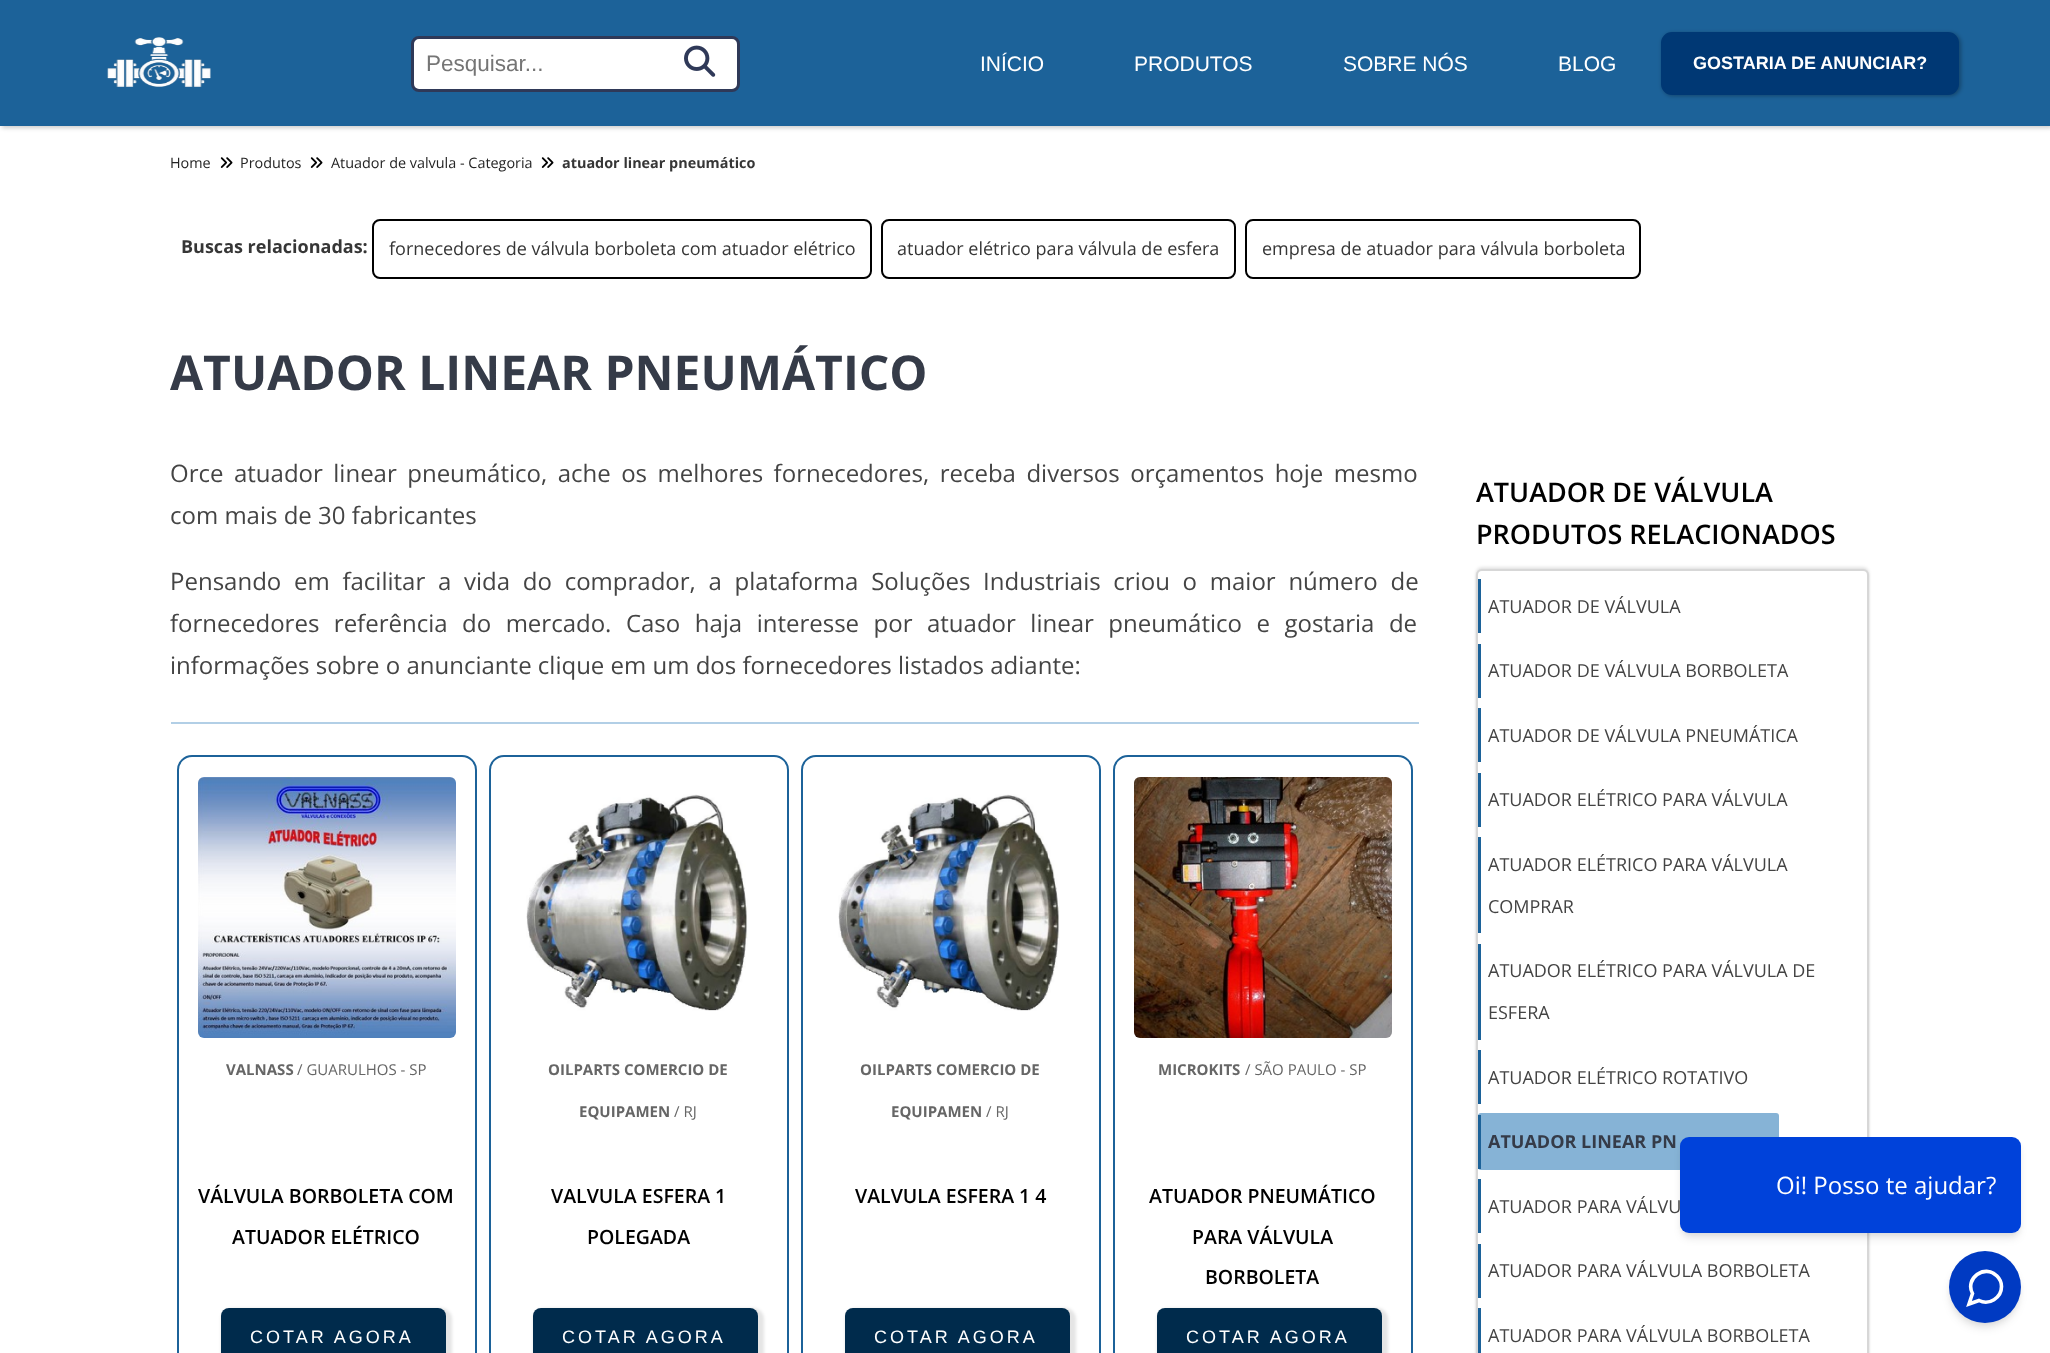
<?xml version="1.0" encoding="UTF-8"?>
<svg xmlns="http://www.w3.org/2000/svg" width="2050" height="1353">
    <defs>
        <filter id="blur1" x="-50%" y="-200%" width="200%" height="500%"><feGaussianBlur stdDeviation="2"/></filter>
        <filter id="blur2" x="-50%" y="-200%" width="200%" height="500%"><feGaussianBlur stdDeviation="1.5"/></filter>
        <filter id="blur3" x="-50%" y="-200%" width="200%" height="500%"><feGaussianBlur stdDeviation="1"/></filter>
        <filter id="blur4" x="-50%" y="-200%" width="200%" height="500%"><feGaussianBlur stdDeviation="3"/></filter>
        <filter id="blur5" x="-50%" y="-200%" width="200%" height="500%"><feGaussianBlur stdDeviation="4.5"/></filter>
    </defs>
    <rect width="100%" height="100%" fill="#FFFFFF"/>
    <rect x="2" y="2" width="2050" height="126" fill="#000000" fill-opacity="0.2" filter="url(#blur1)"/>
    <rect x="0" y="0" width="2050" height="126" fill="#1C6299"/>
    <image x="107" y="37" width="104" height="50" href="img_01.png"/>
    <rect x="412.5" y="37.5" width="326" height="53" rx="6.5" fill="#FFFFFF" stroke="#2F3958" stroke-width="3"/>
    <text x="426" y="71" font-family="Liberation Sans" font-size="22.5" fill="#757575">Pesquisar...</text>
    <image x="684" y="45" width="32" height="32" href="img_02.png"/>
    <text x="980" y="71" font-family="Liberation Sans" font-size="21" fill="#FFFFFF">INÍCIO</text>
    <text x="1134" y="71" font-family="Liberation Sans" font-size="21" fill="#FFFFFF">PRODUTOS</text>
    <text x="1343" y="71" font-family="Liberation Sans" font-size="21" fill="#FFFFFF">SOBRE NÓS</text>
    <text x="1558" y="71" font-family="Liberation Sans" font-size="21" fill="#FFFFFF">BLOG</text>
    <rect x="1662" y="33" width="299" height="63" rx="11" fill="#000000" fill-opacity="0.29" filter="url(#blur1)"/>
    <rect x="1662" y="33" width="296" height="61" rx="10" fill="#003874" stroke="#003874" stroke-width="2"/>
    <text x="1693" y="69" font-family="Liberation Sans" font-size="18" font-weight="700" fill="#FFFFFF">GOSTARIA DE ANUNCIAR?</text>
    <text x="170" y="168" font-family="Open Sans" font-size="14.4" fill="#242424">Home</text>
    <image x="220" y="157" width="13" height="11" href="img_03.png"/>
    <text x="240" y="168" font-family="Open Sans" font-size="14.4" fill="#242424">Produtos</text>
    <image x="310" y="157" width="13" height="11" href="img_03.png"/>
    <text x="331" y="168" font-family="Open Sans" font-size="14.4" fill="#242424">Atuador de valvula - Categoria</text>
    <image x="541" y="157" width="13" height="11" href="img_03.png"/>
    <text x="562" y="168" font-family="Open Sans" font-size="14.4" font-weight="700" fill="#363636">atuador linear pneumático</text>
    <text x="181" y="253" font-family="Open Sans" font-size="18" font-weight="700" fill="#363636">Buscas relacionadas:</text>
    <rect x="373" y="220" width="498" height="58" rx="7" fill="none" stroke="#000000" stroke-width="2"/>
    <text x="389" y="255" font-family="Open Sans" font-size="18" fill="#363636">fornecedores de válvula borboleta com atuador elétrico</text>
    <rect x="882" y="220" width="353" height="58" rx="7" fill="none" stroke="#000000" stroke-width="2"/>
    <text x="897" y="255" font-family="Open Sans" font-size="18" fill="#363636">atuador elétrico para válvula de esfera</text>
    <rect x="1246" y="220" width="394" height="58" rx="7" fill="none" stroke="#000000" stroke-width="2"/>
    <text x="1262" y="255" font-family="Open Sans" font-size="18" fill="#363636">empresa de atuador para válvula borboleta</text>
    <text x="170" y="390" font-family="Open Sans" font-size="48" font-weight="700" fill="#353B48">ATUADOR LINEAR PNEUMÁTICO</text>
    <text font-family="Open Sans" font-size="24" fill="#444444">
        <tspan x="170" y="482" word-spacing="4.25">Orce atuador linear pneumático, ache os melhores fornecedores, receba diversos orçamentos hoje mesmo</tspan>
        <tspan x="170" y="524">com mais de 30 fabricantes</tspan>
    </text>
    <text font-family="Open Sans" font-size="24" fill="#444444">
        <tspan x="170" y="590" word-spacing="6.5">Pensando em facilitar a vida do comprador, a plataforma Soluções Industriais criou o maior número de</tspan>
        <tspan x="170" y="632" word-spacing="8.25">fornecedores referência do mercado. Caso haja interesse por atuador linear pneumático e gostaria de</tspan>
        <tspan x="170" y="674">informações sobre o anunciante clique em um dos fornecedores listados adiante:</tspan>
    </text>
    <rect x="171" y="722" width="1248" height="2" fill="#B2CFE6"/>
    <rect x="178" y="756" width="298" height="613" rx="14" fill="none" stroke="#1C6299" stroke-width="2"/>
    <image x="198" y="777" width="258" height="261" href="img_04.png"/>
    <text x="226" y="1075" font-family="Open Sans" font-size="15" font-weight="700" fill="#666666">VALNASS</text>
    <text x="297" y="1075" font-family="Open Sans" font-size="15" fill="#666666">/ GUARULHOS - SP</text>
    <text x="198" y="1203" font-family="Open Sans" font-size="19.5" font-weight="600" fill="#000000">VÁLVULA BORBOLETA COM</text>
    <text x="232" y="1244" font-family="Open Sans" font-size="19.5" font-weight="600" fill="#000000">ATUADOR ELÉTRICO</text>
    <rect x="221" y="1308" width="231" height="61" rx="11" fill="#000000" fill-opacity="0.1" filter="url(#blur2)"/>
    <rect x="221" y="1308" width="225" height="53" rx="8" fill="#002B4C"/>
    <text x="250" y="1343" font-family="Liberation Sans" font-size="18" letter-spacing="3" fill="#FFFFFF">COTAR AGORA</text>
    <rect x="490" y="756" width="298" height="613" rx="14" fill="none" stroke="#1C6299" stroke-width="2"/>
    <image x="526" y="794" width="222" height="217" href="img_05.png"/>
    <text x="548" y="1075" font-family="Open Sans" font-size="15" font-weight="700" fill="#666666">OILPARTS COMERCIO DE</text>
    <text x="579" y="1117" font-family="Open Sans" font-size="15" font-weight="700" fill="#666666">EQUIPAMEN</text>
    <text x="674" y="1117" font-family="Open Sans" font-size="15" fill="#666666">/ RJ</text>
    <text x="551" y="1203" font-family="Open Sans" font-size="19.5" font-weight="600" fill="#000000">VALVULA ESFERA 1</text>
    <text x="587" y="1244" font-family="Open Sans" font-size="19.5" font-weight="600" fill="#000000">POLEGADA</text>
    <rect x="533" y="1308" width="231" height="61" rx="11" fill="#000000" fill-opacity="0.1" filter="url(#blur2)"/>
    <rect x="533" y="1308" width="225" height="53" rx="8" fill="#002B4C"/>
    <text x="562" y="1343" font-family="Liberation Sans" font-size="18" letter-spacing="3" fill="#FFFFFF">COTAR AGORA</text>
    <rect x="802" y="756" width="298" height="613" rx="14" fill="none" stroke="#1C6299" stroke-width="2"/>
    <image x="838" y="794" width="222" height="217" href="img_05.png"/>
    <text x="860" y="1075" font-family="Open Sans" font-size="15" font-weight="700" fill="#666666">OILPARTS COMERCIO DE</text>
    <text x="891" y="1117" font-family="Open Sans" font-size="15" font-weight="700" fill="#666666">EQUIPAMEN</text>
    <text x="986" y="1117" font-family="Open Sans" font-size="15" fill="#666666">/ RJ</text>
    <text x="855" y="1203" font-family="Open Sans" font-size="19.5" font-weight="600" fill="#000000">VALVULA ESFERA 1 4</text>
    <rect x="845" y="1308" width="231" height="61" rx="11" fill="#000000" fill-opacity="0.1" filter="url(#blur2)"/>
    <rect x="845" y="1308" width="225" height="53" rx="8" fill="#002B4C"/>
    <text x="874" y="1343" font-family="Liberation Sans" font-size="18" letter-spacing="3" fill="#FFFFFF">COTAR AGORA</text>
    <rect x="1114" y="756" width="298" height="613" rx="14" fill="none" stroke="#1C6299" stroke-width="2"/>
    <image x="1134" y="777" width="258" height="261" href="img_06.png"/>
    <text x="1158" y="1075" font-family="Open Sans" font-size="15" font-weight="700" fill="#666666">MICROKITS</text>
    <text x="1245" y="1075" font-family="Open Sans" font-size="15" fill="#666666">/ SÃO PAULO - SP</text>
    <text x="1149" y="1203" font-family="Open Sans" font-size="19.5" font-weight="600" fill="#000000">ATUADOR PNEUMÁTICO</text>
    <text x="1192" y="1244" font-family="Open Sans" font-size="19.5" font-weight="600" fill="#000000">PARA VÁLVULA</text>
    <text x="1205" y="1284" font-family="Open Sans" font-size="19.5" font-weight="600" fill="#000000">BORBOLETA</text>
    <rect x="1157" y="1308" width="231" height="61" rx="11" fill="#000000" fill-opacity="0.1" filter="url(#blur2)"/>
    <rect x="1157" y="1308" width="225" height="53" rx="8" fill="#002B4C"/>
    <text x="1186" y="1343" font-family="Liberation Sans" font-size="18" letter-spacing="3" fill="#FFFFFF">COTAR AGORA</text>
    <text font-family="Open Sans" font-size="27" font-weight="600" fill="#000000">
        <tspan x="1476" y="502">ATUADOR DE VÁLVULA</tspan>
        <tspan x="1476" y="544">PRODUTOS RELACIONADOS</tspan>
    </text>
    <rect x="1476" y="567" width="393" height="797" rx="6" fill="#000000" fill-opacity="0.1" filter="url(#blur2)"/>
    <rect x="1476" y="570" width="393" height="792" rx="6" fill="#000000" fill-opacity="0.1" filter="url(#blur3)"/>
    <rect x="1477" y="570" width="391" height="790" rx="5" fill="#FFFFFF" stroke="#D7D7D7" stroke-width="2"/>
    <rect x="1478" y="579" width="3" height="54" fill="#1C6299"/>
    <text x="1488" y="613" font-family="Open Sans" font-size="18" fill="#444444">ATUADOR DE VÁLVULA</text>
    <rect x="1478" y="644" width="3" height="54" fill="#1C6299"/>
    <text x="1488" y="677" font-family="Open Sans" font-size="18" fill="#444444">ATUADOR DE VÁLVULA BORBOLETA</text>
    <rect x="1478" y="708" width="3" height="54" fill="#1C6299"/>
    <text x="1488" y="742" font-family="Open Sans" font-size="18" fill="#444444">ATUADOR DE VÁLVULA PNEUMÁTICA</text>
    <rect x="1478" y="773" width="3" height="54" fill="#1C6299"/>
    <text x="1488" y="806" font-family="Open Sans" font-size="18" fill="#444444">ATUADOR ELÉTRICO PARA VÁLVULA</text>
    <rect x="1478" y="837" width="3" height="96" fill="#1C6299"/>
    <text x="1488" y="871" font-family="Open Sans" font-size="18" fill="#444444">ATUADOR ELÉTRICO PARA VÁLVULA</text>
    <text x="1488" y="913" font-family="Open Sans" font-size="18" fill="#444444">COMPRAR</text>
    <rect x="1478" y="944" width="3" height="96" fill="#1C6299"/>
    <text x="1488" y="977" font-family="Open Sans" font-size="18" fill="#444444">ATUADOR ELÉTRICO PARA VÁLVULA DE</text>
    <text x="1488" y="1019" font-family="Open Sans" font-size="18" fill="#444444">ESFERA</text>
    <rect x="1478" y="1050" width="3" height="54" fill="#1C6299"/>
    <text x="1488" y="1084" font-family="Open Sans" font-size="18" fill="#444444">ATUADOR ELÉTRICO ROTATIVO</text>
    <rect x="1478" y="1113" width="301" height="57" rx="3" fill="#86B3D6"/>
    <rect x="1478" y="1115" width="3" height="54" fill="#1C6299"/>
    <text x="1488" y="1148" font-family="Open Sans" font-size="18" font-weight="700" fill="#353B48">ATUADOR LINEAR PN</text>
    <rect x="1478" y="1179" width="3" height="54" fill="#1C6299"/>
    <text x="1488" y="1213" font-family="Open Sans" font-size="18" fill="#444444">ATUADOR PARA VÁLVU</text>
    <rect x="1478" y="1244" width="3" height="54" fill="#1C6299"/>
    <text x="1488" y="1277" font-family="Open Sans" font-size="18" fill="#444444">ATUADOR PARA VÁLVULA BORBOLETA</text>
    <rect x="1478" y="1308" width="3" height="45" fill="#1C6299"/>
    <text x="1488" y="1342" font-family="Open Sans" font-size="18" fill="#444444">ATUADOR PARA VÁLVULA BORBOLETA</text>
    <rect x="1683" y="1143" width="335" height="90" rx="6" fill="#000000" fill-opacity="0.1" filter="url(#blur4)"/>
    <rect x="1682" y="1145" width="337" height="93" rx="8" fill="#000000" fill-opacity="0.1" filter="url(#blur5)"/>
    <rect x="1680" y="1137" width="341" height="96" rx="9" fill="#0042DA"/>
    <text x="1776" y="1194" font-family="Open Sans" font-size="24" fill="#FFFFFF">Oi! Posso te ajudar?</text>
    <rect x="1952" y="1257" width="66" height="66" rx="33" fill="#000000" fill-opacity="0.1" filter="url(#blur4)"/>
    <rect x="1950" y="1259" width="69" height="69" rx="34.5" fill="#000000" fill-opacity="0.1" filter="url(#blur5)"/>
    <circle cx="1985" cy="1287" r="36" fill="#003AC2"/>
    <path d="M 2001.5 1286.5 C 2001.5 1298 1989 1305.5 1979 1300.5 L 1969 1304 L 1972.5 1293.5 C 1964.5 1278.5 1984.5 1263.5 1997 1276 C 1999.5 1278.5 2001.5 1282.5 2001.5 1286.5 Z" fill="none" stroke="#FFFFFF" stroke-width="3.6"/>
</svg>
